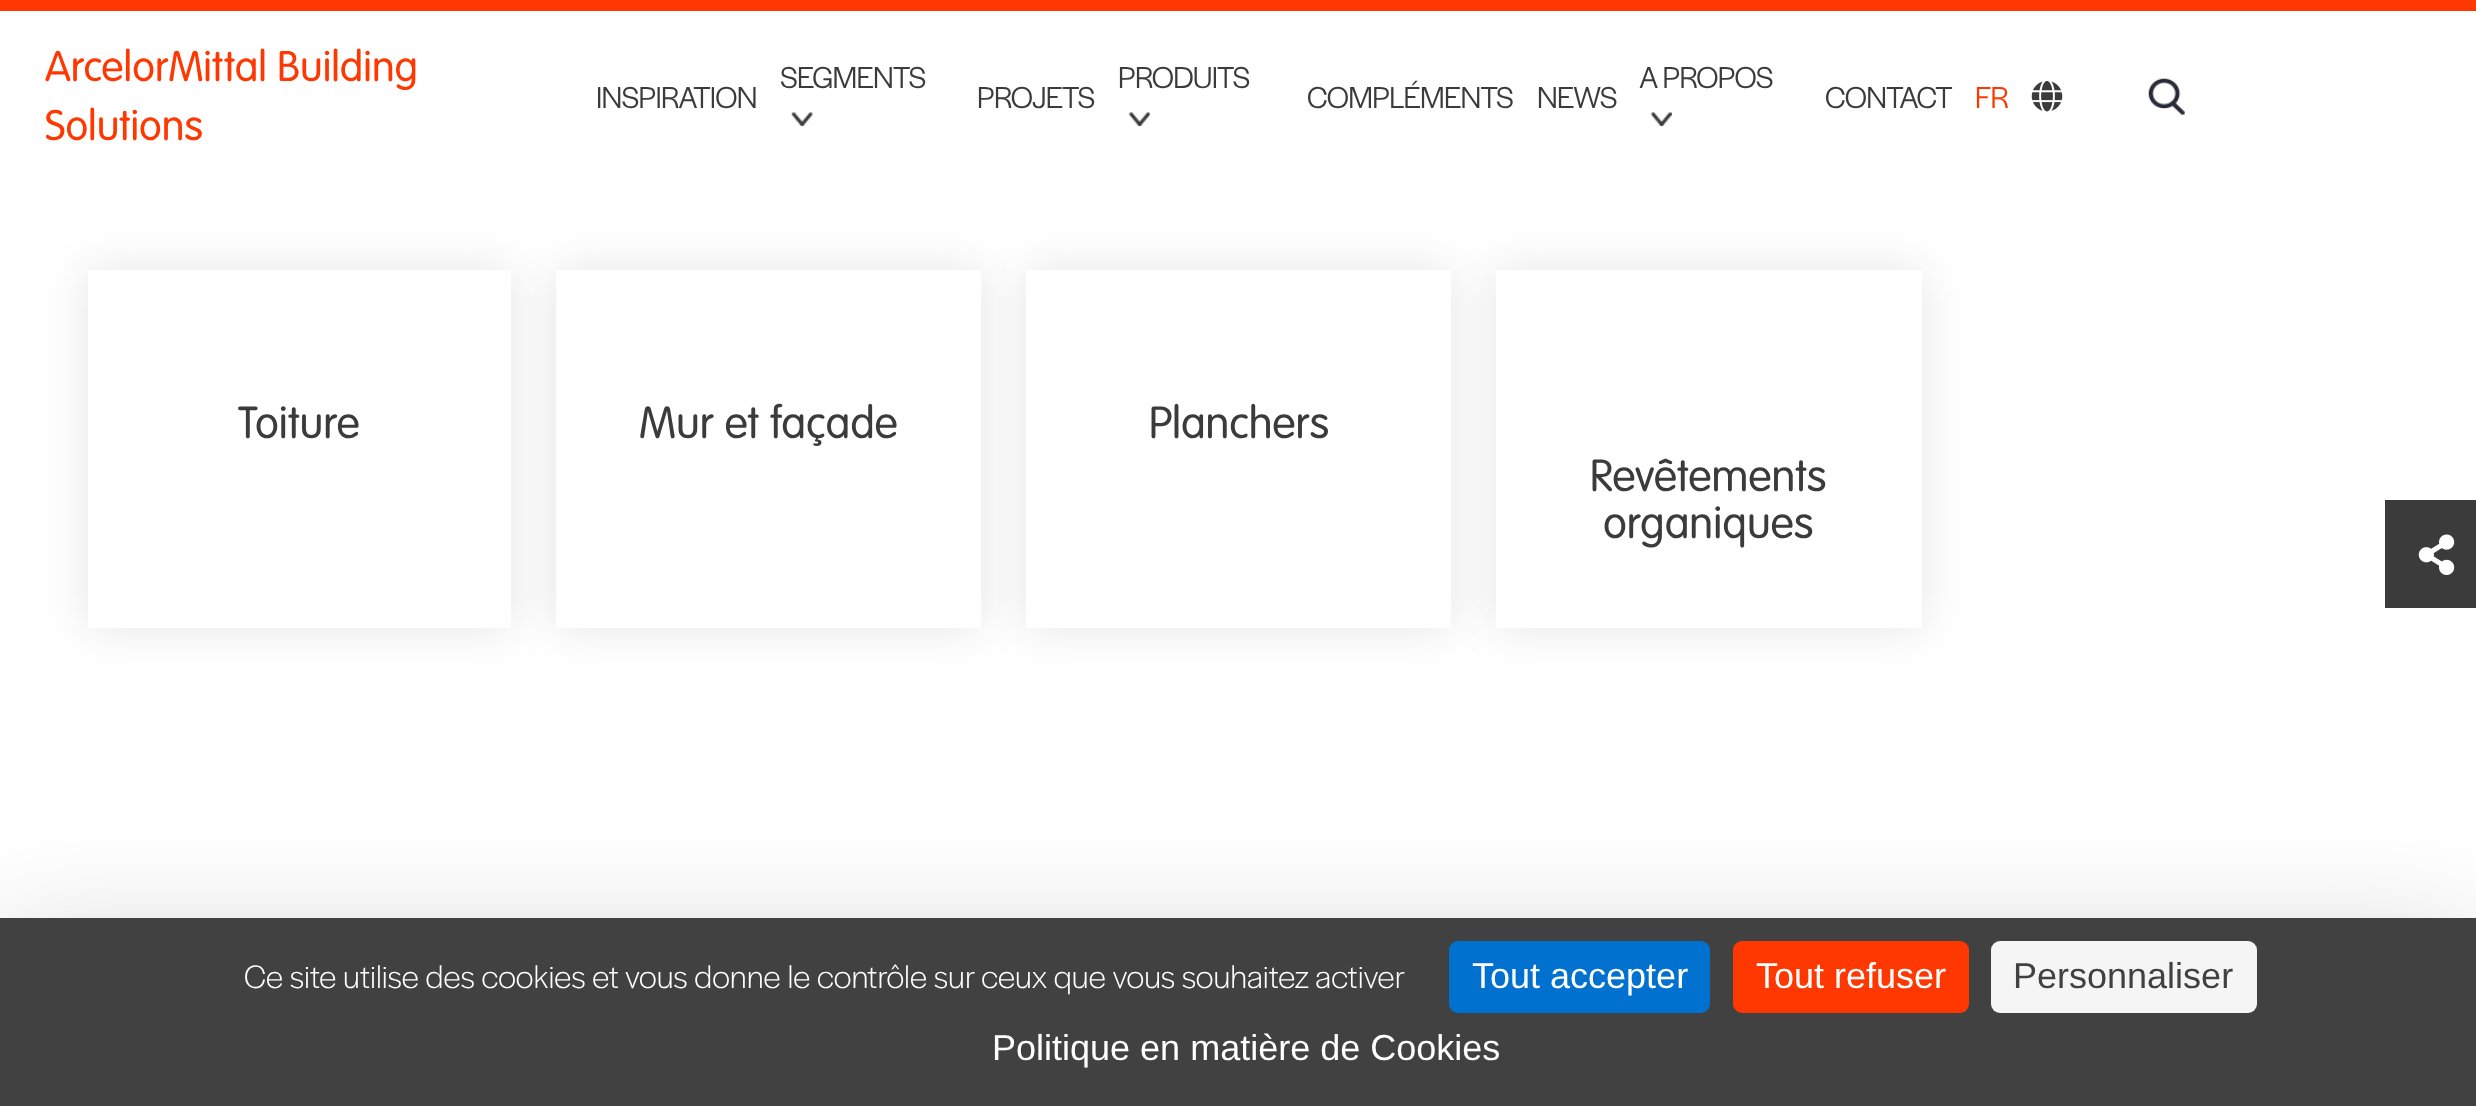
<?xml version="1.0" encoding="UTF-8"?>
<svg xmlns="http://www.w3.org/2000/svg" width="2476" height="1106">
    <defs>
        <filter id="blur1" x="-50%" y="-200%" width="200%" height="500%"><feGaussianBlur stdDeviation="22.5"/></filter>
        <filter id="blur2" x="-50%" y="-200%" width="200%" height="500%"><feGaussianBlur stdDeviation="67.5"/></filter>
    </defs>
    <rect width="100%" height="100%" fill="#FFFFFF"/>
    <rect x="0" y="0" width="2476" height="11" fill="#FF3700"/>
    <text font-family="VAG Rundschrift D" font-size="45" font-weight="300" fill="#FF3700">
        <tspan x="45" y="81">ArcelorMittal Building</tspan>
        <tspan x="45" y="140">Solutions</tspan>
    </text>
    <text x="596" y="108" font-family="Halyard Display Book" font-size="31.5" letter-spacing="-0.75" fill="#3B3B3B">INSPIRATION</text>
    <text x="780" y="88" font-family="Halyard Display Book" font-size="31.5" letter-spacing="-0.75" fill="#3B3B3B">SEGMENTS</text>
    <image x="791" y="112" width="22" height="14" href="img_01.png"/>
    <text x="977" y="108" font-family="Halyard Display Book" font-size="31.5" letter-spacing="-0.75" fill="#3B3B3B">PROJETS</text>
    <text x="1118" y="88" font-family="Halyard Display Book" font-size="31.5" letter-spacing="-0.75" fill="#3B3B3B">PRODUITS</text>
    <image x="1128" y="112" width="22" height="14" href="img_02.png"/>
    <text x="1307" y="108" font-family="Halyard Display Book" font-size="31.5" letter-spacing="-0.75" fill="#3B3B3B">COMPLÉMENTS</text>
    <text x="1537" y="108" font-family="Halyard Display Book" font-size="31.5" letter-spacing="-0.75" fill="#3B3B3B">NEWS</text>
    <text x="1639" y="88" font-family="Halyard Display Book" font-size="31.5" letter-spacing="-0.75" fill="#3B3B3B">A PROPOS</text>
    <image x="1650" y="112" width="22" height="14" href="img_03.png"/>
    <text x="1825" y="108" font-family="Halyard Display Book" font-size="31.5" letter-spacing="-0.75" fill="#3B3B3B">CONTACT</text>
    <text x="1975" y="108" font-family="Halyard Display Book" font-size="31.5" letter-spacing="-0.75" fill="#FF3700">FR</text>
    <image x="2031" y="81" width="32" height="31" href="img_04.png"/>
    <image x="2148" y="78" width="37" height="37" href="img_05.png"/>
    <rect x="88" y="270" width="423" height="358" fill="#000000" fill-opacity="0.1" filter="url(#blur1)"/>
    <rect x="88" y="270" width="423" height="358" fill="#FFFFFF"/>
    <text x="238" y="438" font-family="VAG Rundschrift D" font-size="47.25" font-weight="300" fill="#3B3B3B">Toiture</text>
    <rect x="556" y="270" width="425" height="358" fill="#000000" fill-opacity="0.1" filter="url(#blur1)"/>
    <rect x="556" y="270" width="425" height="358" fill="#FFFFFF"/>
    <text x="639" y="438" font-family="VAG Rundschrift D" font-size="47.25" font-weight="300" fill="#3B3B3B">Mur et façade</text>
    <rect x="1026" y="270" width="425" height="358" fill="#000000" fill-opacity="0.1" filter="url(#blur1)"/>
    <rect x="1026" y="270" width="425" height="358" fill="#FFFFFF"/>
    <text x="1149" y="438" font-family="VAG Rundschrift D" font-size="47.25" font-weight="300" fill="#3B3B3B">Planchers</text>
    <rect x="1496" y="270" width="426" height="358" fill="#000000" fill-opacity="0.1" filter="url(#blur1)"/>
    <rect x="1496" y="270" width="426" height="358" fill="#FFFFFF"/>
    <text x="1590" y="491" font-family="VAG Rundschrift D" font-size="47.25" font-weight="300" fill="#3B3B3B">Revêtements</text>
    <text x="1603" y="538" font-family="VAG Rundschrift D" font-size="47.25" font-weight="300" fill="#3B3B3B">organiques</text>
    <rect x="2385" y="500" width="91" height="108" fill="#3B3B3B"/>
    <image x="2418" y="534" width="37" height="41" href="img_06.png"/>
    <rect x="0" y="963" width="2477" height="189" fill="#000000" fill-opacity="0.25" filter="url(#blur2)"/>
    <rect x="0" y="918" width="2476" height="188" fill="#414141"/>
    <text x="244" y="988" font-family="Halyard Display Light" font-size="33.75" font-weight="300" fill="#FFFFFF">Ce site utilise des cookies et vous donne le contrôle sur ceux que vous souhaitez activer</text>
    <rect x="1449" y="941" width="261" height="72" rx="9" fill="#0071CE"/>
    <text x="1472" y="988" font-family="Liberation Sans" font-size="36" fill="#FFFFFF">Tout accepter</text>
    <rect x="1733" y="941" width="236" height="72" rx="9" fill="#FF3700"/>
    <text x="1756" y="988" font-family="Liberation Sans" font-size="36" fill="#FFFFFF">Tout refuser</text>
    <rect x="1991" y="941" width="266" height="72" rx="9" fill="#F5F5F5"/>
    <text x="2013" y="988" font-family="Liberation Sans" font-size="36" fill="#414141">Personnaliser</text>
    <text x="992" y="1060" font-family="Liberation Sans" font-size="36" fill="#FFFFFF">Politique en matière de Cookies</text>
</svg>
